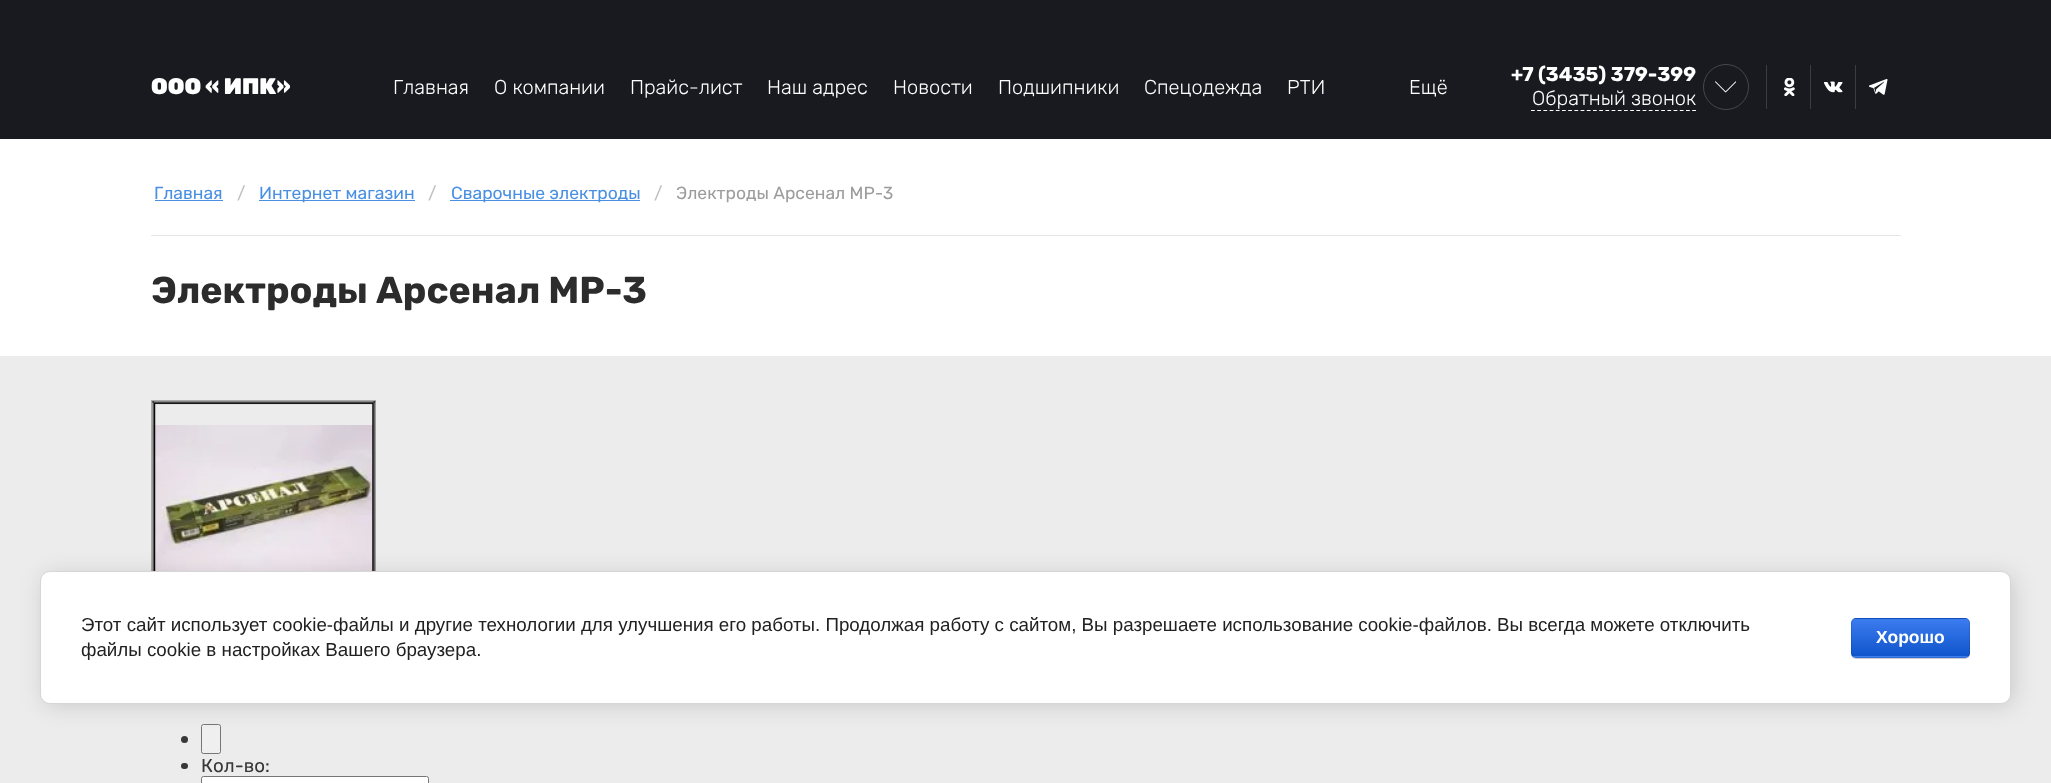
<?xml version="1.0" encoding="UTF-8"?>
<svg xmlns="http://www.w3.org/2000/svg" width="2051" height="783">
    <defs>
        <filter id="blur1" x="-50%" y="-200%" width="200%" height="500%"><feGaussianBlur stdDeviation="11"/></filter>
        <filter id="blur2" x="-50%" y="-200%" width="200%" height="500%"><feGaussianBlur stdDeviation="0.5"/></filter>
        <clipPath id="clip1"><rect x="1851" y="618" width="119" height="40" rx="5"/></clipPath>
        <linearGradient id="g1" gradientUnits="userSpaceOnUse" x1="1911" y1="581" x2="1911" y2="619"><stop offset="0" stop-color="#3B7CEF"/><stop offset="1" stop-color="#1155CC"/></linearGradient>
        <linearGradient id="g2" gradientUnits="userSpaceOnUse" x1="1911" y1="619" x2="1911" y2="656"><stop offset="0" stop-color="#3B7CEF"/><stop offset="1" stop-color="#1155CC"/></linearGradient>
        <linearGradient id="g3" gradientUnits="userSpaceOnUse" x1="1911" y1="656" x2="1911" y2="694"><stop offset="0" stop-color="#3B7CEF"/><stop offset="1" stop-color="#1155CC"/></linearGradient>
    </defs>
    <rect width="100%" height="100%" fill="#FFFFFF"/>
    <rect x="0" y="0" width="2051" height="139" fill="#191A1F"/>
    <text x="151" y="94" font-family="'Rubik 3'" font-size="22.5" font-weight="300" fill="#FFFFFF">ООО « ИПК»</text>
    <text x="393" y="94" font-family="'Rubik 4'" font-size="20" font-weight="300" fill="#FFFFFF">Главная</text>
    <text x="494" y="94" font-family="'Rubik 4'" font-size="20" font-weight="300" fill="#FFFFFF">О компании</text>
    <text x="630" y="94" font-family="'Rubik 4'" font-size="20" font-weight="300" fill="#FFFFFF">Прайс-лист</text>
    <text x="767" y="94" font-family="'Rubik 4'" font-size="20" font-weight="300" fill="#FFFFFF">Наш адрес</text>
    <text x="893" y="94" font-family="'Rubik 4'" font-size="20" font-weight="300" fill="#FFFFFF">Новости</text>
    <text x="998" y="94" font-family="'Rubik 4'" font-size="20" font-weight="300" fill="#FFFFFF">Подшипники</text>
    <text x="1144" y="94" font-family="'Rubik 4'" font-size="20" font-weight="300" fill="#FFFFFF">Спецодежда</text>
    <text x="1287" y="94" font-family="'Rubik 4'" font-size="20" font-weight="300" fill="#FFFFFF">РТИ</text>
    <text x="1409" y="94" font-family="'Rubik 4'" font-size="20" font-weight="300" fill="#FFFFFF">Ещё</text>
    <text x="1511" y="81" font-family="'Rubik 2'" font-size="20" font-weight="300" fill="#FFFFFF">+7 (3435) 379-399</text>
    <path d="M 1531 110.5 H 1696" fill="none" stroke="#FFFFFF" stroke-width="1.2" stroke-dasharray="3.75 2.45"/>
    <text x="1532" y="105" font-family="'Rubik 4'" font-size="20" font-weight="300" fill="#FFFFFF">Обратный звонок</text>
    <circle cx="1726" cy="87" r="22.5" fill="none" stroke="#47484C"/>
    <image x="1715" y="81" width="21" height="12" href="img_01.png"/>
    <rect x="1766" y="65" width="1" height="44" fill="#3C3C41"/>
    <image x="1784" y="78" width="11" height="18" href="img_02.png"/>
    <rect x="1810" y="65" width="1" height="44" fill="#3C3C41"/>
    <image x="1824" y="81" width="19" height="12" href="img_03.png"/>
    <rect x="1855" y="65" width="1" height="44" fill="#3C3C41"/>
    <image x="1869" y="79" width="19" height="16" href="img_04.png"/>
    <rect x="151" y="235" width="1750" height="1" fill="#E6E6E6"/>
    <text x="154" y="199" font-family="Rubik" font-size="17.5" font-weight="300" fill="#4A90E2">Главная</text>
    <rect x="155" y="200" width="68" height="1" fill="#4A90E2"/>
    <text x="237" y="199" font-family="Rubik" font-size="17.5" font-weight="300" fill="#C0C0C0">/</text>
    <rect x="259" y="200" width="156" height="1" fill="#4A90E2"/>
    <text x="259" y="199" font-family="Rubik" font-size="17.5" font-weight="300" fill="#4A90E2">Интернет магазин</text>
    <text x="428" y="199" font-family="Rubik" font-size="17.5" font-weight="300" fill="#C0C0C0">/</text>
    <rect x="450" y="200" width="190" height="1" fill="#4A90E2"/>
    <text x="451" y="199" font-family="Rubik" font-size="17.5" font-weight="300" fill="#4A90E2">Сварочные электроды</text>
    <text x="654" y="199" font-family="Rubik" font-size="17.5" font-weight="300" fill="#C0C0C0">/</text>
    <text x="676" y="199" font-family="Rubik" font-size="17.5" font-weight="300" fill="#9C9C9C">Электроды Арсенал МР-3</text>
    <text x="151" y="303" font-family="'Rubik 2'" font-size="37.5" font-weight="300" fill="#2C2C2C">Электроды Арсенал МР-3</text>
    <rect x="0" y="356" width="2051" height="427" fill="#ECECEC"/>
    <image x="152" y="401" width="223" height="170" href="img_05.png"/>
    <rect x="151.5" y="400.5" width="224" height="199" fill="none" stroke="#AAAAAA"/>
    <image x="152" y="401" width="224" height="170" href="img_06.png"/>
    <circle cx="184.5" cy="739.5" r="3.5" fill="#383838"/>
    <rect x="201.5" y="724.5" width="19" height="29" rx="2" fill="#EFEFEF" stroke="#767676"/>
    <rect x="181" y="763" width="7" height="6" rx="3" fill="#383838"/>
    <text x="201" y="772" font-family="Rubik" font-size="18.75" font-weight="300" fill="#383838">Кол-во:</text>
    <rect x="201.5" y="776.5" width="227" height="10" rx="2" fill="#FFFFFF" stroke="#767676"/>
    <rect x="43" y="574" width="1971" height="132" rx="10" fill="#000000" fill-opacity="0.14" filter="url(#blur1)"/>
    <rect x="40.5" y="571.5" width="1970" height="132" rx="9.5" fill="#FFFFFF" stroke="#D6D6D6"/>
    <text font-family="Liberation Sans" font-size="18.75" fill="#212121">
        <tspan x="81" y="631">Этот сайт использует cookie-файлы и другие технологии для улучшения его работы. Продолжая работу с сайтом, Вы разрешаете использование cookie-файлов. Вы всегда можете отключить</tspan>
        <tspan x="81" y="656">файлы cookie в настройках Вашего браузера.</tspan>
    </text>
    <rect x="1851" y="619" width="119" height="40" rx="5" fill="#000000" fill-opacity="0.2" filter="url(#blur2)"/>
    <g clip-path="url(#clip1)">
        <rect x="1851" y="618" width="119" height="1" fill="url(#g1)"/>
        <rect x="1851" y="619" width="119" height="37" fill="url(#g2)"/>
        <rect x="1851" y="656" width="119" height="2" fill="url(#g3)"/>
    </g>
    <rect x="1851.5" y="618.5" width="118" height="39" rx="4.5" fill="none" stroke="#000000" stroke-opacity="0.1"/>
    <text x="1876" y="643" font-family="Liberation Sans" font-size="17.5" font-weight="700" fill="#FFFFFF">Хорошо</text>
</svg>
